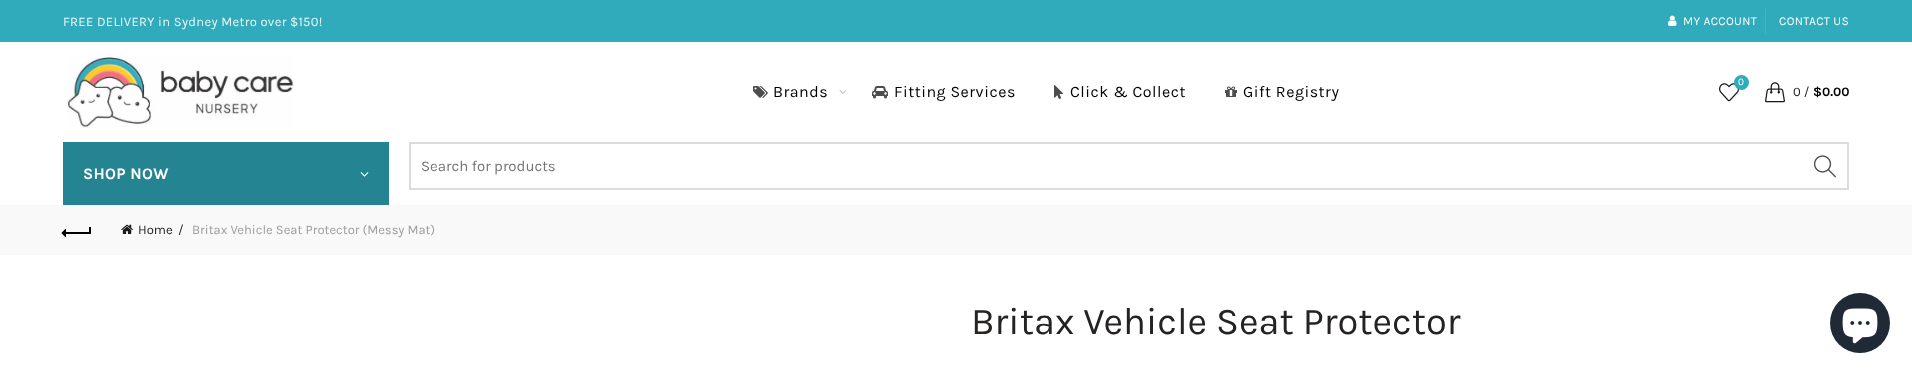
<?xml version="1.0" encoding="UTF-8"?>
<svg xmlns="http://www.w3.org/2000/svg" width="1912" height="374">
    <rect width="100%" height="100%" fill="#FFFFFF"/>
    <rect x="0" y="0" width="1912" height="42" fill="#30ABBC"/>
    <text x="63" y="26" font-family="Karla" font-size="13" letter-spacing="0.3" fill="#EAF7F8">FREE DELIVERY in Sydney Metro over $150!</text>
    <image x="1668" y="15" width="9" height="11" href="img_01.png"/>
    <text x="1683" y="25" font-family="Karla" font-size="12" letter-spacing="0.3" fill="#FFFFFF">MY ACCOUNT</text>
    <rect x="1765" y="9" width="1" height="25" fill="#45B3C3"/>
    <text x="1779" y="25" font-family="Karla" font-size="12" letter-spacing="0.3" fill="#FFFFFF">CONTACT US</text>
    <image x="67" y="56" width="227" height="72" href="img_02.png"/>
    <image x="753" y="86" width="15" height="12" href="img_03.png"/>
    <text x="773" y="97" font-family="Karla" font-size="16" letter-spacing="0.5" fill="#000000">Brands</text>
    <image x="839" y="90" width="8" height="4" href="img_04.png"/>
    <image x="872" y="86" width="16" height="13" href="img_05.png"/>
    <text x="894" y="97" font-family="Karla" font-size="16" letter-spacing="0.5" fill="#000000">Fitting Services</text>
    <image x="1054" y="85" width="9" height="14" href="img_06.png"/>
    <text x="1070" y="97" font-family="Karla" font-size="16" letter-spacing="0.5" fill="#000000">Click &amp; Collect</text>
    <image x="1225" y="86" width="12" height="11" href="img_07.png"/>
    <text x="1243" y="97" font-family="Karla" font-size="16" letter-spacing="0.5" fill="#000000">Gift Registry</text>
    <image x="1719" y="83" width="20" height="19" href="img_08.png"/>
    <circle cx="1741.5" cy="82.5" r="7.5" fill="#30ABBC"/>
    <text x="1738" y="85" font-family="Karla" font-size="10" fill="#FFFFFF">0</text>
    <image x="1765" y="82" width="20" height="21" href="img_09.png"/>
    <text x="1793" y="96" font-family="Karla" font-size="13" fill="#1A1A1A">0 /</text>
    <text x="1813" y="96" font-family="Karla" font-size="13" font-weight="700" fill="#000000">$0.00</text>
    <rect x="63" y="142" width="326" height="63" fill="#258491"/>
    <text x="83" y="179" font-family="Karla" font-size="16" font-weight="700" letter-spacing="0.3" fill="#FFFFFF">SHOP NOW</text>
    <image x="360" y="172" width="9" height="5" href="img_10.png"/>
    <rect x="410" y="143" width="1438" height="46" fill="none" stroke="#DCDCDC" stroke-width="2"/>
    <text x="421" y="171" font-family="Karla" font-size="15" fill="#757575">Search for products</text>
    <image x="1814" y="155" width="22" height="23" href="img_11.png"/>
    <rect x="0" y="205" width="1912" height="50" fill="#F9F9F9"/>
    <rect x="65" y="232" width="25" height="2" fill="#000000"/>
    <image x="61" y="229" width="5" height="8" href="img_12.png"/>
    <rect x="89" y="227" width="2" height="7" fill="#000000"/>
    <image x="121" y="224" width="12" height="10" href="img_13.png"/>
    <text x="138" y="234" font-family="Karla" font-size="13" fill="#1A1A1A">Home</text>
    <text x="178" y="234" font-family="Karla" font-size="13" fill="#1A1A1A">/</text>
    <text x="192" y="234" font-family="Karla" font-size="13" fill="#9E9E9E">Britax Vehicle Seat Protector (Messy Mat)</text>
    <text x="971" y="334" font-family="Karla" font-size="38" fill="#252222">Britax Vehicle Seat Protector</text>
    <circle cx="1860" cy="323" r="30" fill="#202A36"/>
    <image x="1842" y="308" width="36" height="36" href="img_14.png"/>
</svg>
